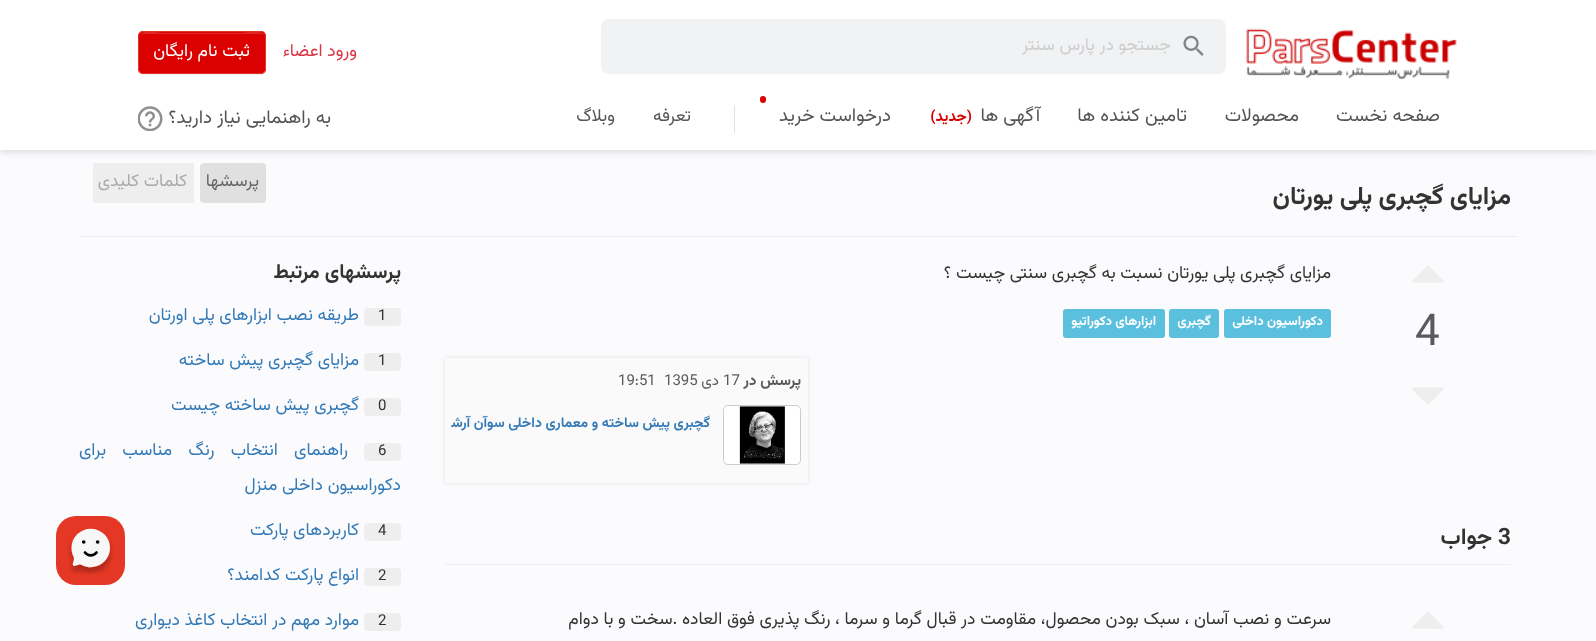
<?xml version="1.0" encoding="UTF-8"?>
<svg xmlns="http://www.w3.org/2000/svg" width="1596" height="641">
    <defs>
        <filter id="blur1" x="-50%" y="-200%" width="200%" height="500%"><feGaussianBlur stdDeviation="3"/></filter>
        <filter id="blur2" x="-50%" y="-200%" width="200%" height="500%"><feGaussianBlur stdDeviation="0.5"/></filter>
        <filter id="blur3" x="-50%" y="-200%" width="200%" height="500%"><feGaussianBlur stdDeviation="2"/></filter>
        <clipPath id="clip1"><rect x="451" y="405" width="259" height="35"/></clipPath>
    </defs>
    <rect width="100%" height="100%" fill="#FBFBFD"/>
    <rect x="0" y="3" width="1596" height="150" fill="#000000" fill-opacity="0.1" filter="url(#blur1)"/>
    <rect x="0" y="0" width="1596" height="150" fill="#FFFFFF"/>
    <image x="1246" y="28" width="211" height="51" href="img_01.png"/>
    <rect x="601" y="19" width="625" height="55" rx="8" fill="#F1F2F4"/>
    <image x="1183" y="35" width="21" height="21" href="img_02.png"/>
    <text x="1171" y="50" font-family="Vazirmatn" font-size="17.5" direction="rtl" fill="#CDCDCD">جستجو در پارس سنتر</text>
    <text x="357" y="56" font-family="Vazirmatn" font-size="17.5" direction="rtl" fill="#DC3545">ورود اعضاء</text>
    <rect x="138" y="33" width="128" height="42" rx="5" fill="#000000" fill-opacity="0.07" filter="url(#blur2)"/>
    <rect x="138" y="31" width="128" height="43" rx="5" fill="#DB0101"/>
    <path d="M 142 34 H 261 C 263 34 265 35 265 38 C 265 28 244 33 241 33 H 163 C 160 33 139 28 139 38 C 139 35 140 34 142 34 Z" fill="#E02727"/>
    <rect x="138.5" y="31.5" width="127" height="42" rx="4.5" fill="none" stroke="#E43725"/>
    <text x="250" y="56" font-family="Vazirmatn" font-size="17.5" direction="rtl" fill="#FFFFFF">ثبت نام رایگان</text>
    <text x="1440" y="121" font-family="Vazirmatn" font-size="18.75" direction="rtl" fill="#545454">صفحه نخست</text>
    <text x="1299" y="121" font-family="Vazirmatn" font-size="18.75" direction="rtl" fill="#545454">محصولات</text>
    <text x="1187" y="121" font-family="Vazirmatn" font-size="18.75" direction="rtl" fill="#545454">تامین کننده ها</text>
    <text x="1040" y="121" font-family="Vazirmatn" font-size="18.75" direction="rtl" fill="#545454">آگهی ها</text>
    <text x="972" y="121" font-family="Vazirmatn" font-size="15" font-weight="700" direction="rtl" fill="#DB0101">(جدید)</text>
    <rect x="760" y="96" width="6" height="7" rx="3" fill="#DB0101"/>
    <text x="891" y="121" font-family="Vazirmatn" font-size="18.75" direction="rtl" fill="#545454">درخواست خرید</text>
    <rect x="734" y="105" width="1" height="28" fill="#E0E0E6"/>
    <text x="691" y="121" font-family="Vazirmatn" font-size="17.5" direction="rtl" fill="#545454">تعرفه</text>
    <text x="615" y="121" font-family="Vazirmatn" font-size="17.5" direction="rtl" fill="#545454">وبلاگ</text>
    <text x="331" y="123" font-family="Vazirmatn" font-size="18.75" direction="rtl" fill="#545454">به راهنمایی نیاز دارید؟</text>
    <image x="138" y="106" width="25" height="25" href="img_03.png"/>
    <rect x="80" y="236" width="1438" height="1" fill="#EEEEEE"/>
    <text x="1511" y="204" font-family="Vazirmatn" font-size="25" font-weight="700" direction="rtl" fill="#333333">مزایای گچبری پلی یورتان</text>
    <rect x="200" y="163" width="66" height="40" rx="4" fill="#E0E0E0"/>
    <text x="259" y="186" font-family="Vazirmatn" font-size="17.5" direction="rtl" fill="#666666">پرسشها</text>
    <rect x="93" y="163" width="101" height="40" fill="#EEEEEE"/>
    <text x="187" y="186" font-family="Vazirmatn" font-size="17.5" direction="rtl" fill="#AAAAAA">کلمات کلیدی</text>
    <path d="M 1429 266 L 1441 278 C 1441 278.5 1446.5 282.5 1442.5 282.5 H 1413 L 1412 282 V 281 L 1424.5 268.5 C 1425 268 1427 264.5 1429 266 Z" fill="#EEEEEE"/>
    <text x="1415" y="345" font-family="Vazirmatn" font-size="44" fill="#585B5E">4</text>
    <path d="M 1413 387.5 H 1442.5 C 1446.5 387.5 1441 391.5 1441 392 L 1429 404 C 1427 405.5 1425 402 1424.5 401.5 L 1417 394.5 C 1414 391 1409 387.5 1413 387.5 Z" fill="#EEEEEE"/>
    <text x="1331" y="278" font-family="Vazirmatn" font-size="17.5" direction="rtl" fill="#333333">مزایای گچبری پلی یورتان نسبت به گچبری سنتی چیست ؟</text>
    <rect x="1224" y="309" width="107" height="29" rx="3" fill="#5BC0DE"/>
    <text x="1323" y="325" font-family="Vazirmatn" font-size="13" font-weight="700" direction="rtl" fill="#FFFFFF">دکوراسیون داخلی</text>
    <rect x="1169" y="309" width="50" height="29" rx="3" fill="#5BC0DE"/>
    <text x="1211" y="325" font-family="Vazirmatn" font-size="13" font-weight="700" direction="rtl" fill="#FFFFFF">گچبری</text>
    <rect x="1063" y="309" width="102" height="29" rx="3" fill="#5BC0DE"/>
    <text x="1156" y="325" font-family="Vazirmatn" font-size="13" font-weight="700" direction="rtl" fill="#FFFFFF">ابزارهای دکوراتیو</text>
    <rect x="445" y="358" width="363" height="125" fill="#000000" fill-opacity="0.1" filter="url(#blur3)"/>
    <rect x="445" y="358" width="363" height="125" fill="#FAFAFA"/>
    <text x="801" y="385" font-family="Vazirmatn" font-size="15" font-weight="700" direction="rtl" fill="#585B5E">پرسش در</text>
    <text x="723" y="385" font-family="Vazirmatn" font-size="15" fill="#585B5E">17</text>
    <text x="719" y="385" font-family="Vazirmatn" font-size="15" direction="rtl" fill="#585B5E">دی</text>
    <text x="664" y="385" font-family="Vazirmatn" font-size="15" fill="#585B5E">1395</text>
    <text x="618" y="385" font-family="Vazirmatn" font-size="15" fill="#585B5E">19:51</text>
    <rect x="723.5" y="405.5" width="77" height="59" rx="4.5" fill="#FFFFFF" stroke="#CCCCCC"/>
    <image x="724" y="406" width="61" height="58" href="img_04.png"/>
    <g clip-path="url(#clip1)">
        <text x="710" y="427" font-family="Vazirmatn" font-size="14" font-weight="700" direction="rtl" fill="#337AB7">گچبری پیش ساخته و معماری داخلی سوآن آرشیت</text>
    </g>
    <rect x="445" y="564" width="1066" height="1" fill="#EEEEEE"/>
    <text x="1498" y="544" font-family="Vazirmatn" font-size="22.5" font-weight="700" fill="#333333">3</text>
    <text x="1492" y="544" font-family="Vazirmatn" font-size="22.5" font-weight="700" direction="rtl" fill="#333333">جواب</text>
    <path d="M 1429 612.5 L 1441 624.5 C 1441 624.5 1446.5 628.5 1442.5 629 L 1413 628.5 H 1412 V 627.5 L 1424.5 614.5 C 1425 614 1427 610.5 1429 612.5 Z" fill="#EEEEEE"/>
    <text x="1331" y="624" font-family="Vazirmatn" font-size="17.5" direction="rtl" fill="#333333">سرعت و نصب آسان ، سبک بودن محصول، مقاومت در قبال گرما و سرما ، رنگ پذیری فوق العاده .سخت و با دوام</text>
    <text x="401" y="278" font-family="Vazirmatn" font-size="20" font-weight="700" direction="rtl" fill="#333333">پرسشهای مرتبط</text>
    <rect x="364" y="308" width="37" height="18" rx="4" fill="#EEEEEE"/>
    <text x="378" y="320" font-family="Vazirmatn" font-size="15" fill="#333333">1</text>
    <text x="359" y="320" font-family="Vazirmatn" font-size="17.5" direction="rtl" fill="#337AB7">طریقه نصب ابزارهای پلی اورتان</text>
    <rect x="364" y="353" width="37" height="18" rx="4" fill="#EEEEEE"/>
    <text x="378" y="365" font-family="Vazirmatn" font-size="15" fill="#333333">1</text>
    <text x="359" y="365" font-family="Vazirmatn" font-size="17.5" direction="rtl" fill="#337AB7">مزایای گچبری پیش ساخته</text>
    <rect x="364" y="398" width="37" height="18" rx="4" fill="#EEEEEE"/>
    <text x="378" y="410" font-family="Vazirmatn" font-size="15" fill="#333333">0</text>
    <text x="359" y="410" font-family="Vazirmatn" font-size="17.5" direction="rtl" fill="#337AB7">گچبری پیش ساخته چیست</text>
    <rect x="364" y="443" width="37" height="18" rx="4" fill="#EEEEEE"/>
    <text x="378" y="455" font-family="Vazirmatn" font-size="15" fill="#333333">6</text>
    <text x="348" y="455" word-spacing="11.5" font-family="Vazirmatn" font-size="17.5" direction="rtl" fill="#337AB7">راهنمای انتخاب رنگ مناسب برای</text>
    <text x="401" y="490" font-family="Vazirmatn" font-size="17.5" direction="rtl" fill="#337AB7">دکوراسیون داخلی منزل</text>
    <rect x="364" y="523" width="37" height="18" rx="4" fill="#EEEEEE"/>
    <text x="378" y="535" font-family="Vazirmatn" font-size="15" fill="#333333">4</text>
    <text x="359" y="535" font-family="Vazirmatn" font-size="17.5" direction="rtl" fill="#337AB7">کاربردهای پارکت</text>
    <rect x="364" y="568" width="37" height="18" rx="4" fill="#EEEEEE"/>
    <text x="378" y="580" font-family="Vazirmatn" font-size="15" fill="#333333">2</text>
    <text x="359" y="580" font-family="Vazirmatn" font-size="17.5" direction="rtl" fill="#337AB7">انواع پارکت کدامند؟</text>
    <rect x="364" y="613" width="37" height="18" rx="4" fill="#EEEEEE"/>
    <text x="378" y="625" font-family="Vazirmatn" font-size="15" fill="#333333">2</text>
    <text x="359" y="625" font-family="Vazirmatn" font-size="17.5" direction="rtl" fill="#337AB7">موارد مهم در انتخاب کاغذ دیواری</text>
    <rect x="56" y="516" width="69" height="69" rx="20" fill="#E43725"/>
    <image x="68" y="528" width="45" height="46" href="img_05.png"/>
</svg>
